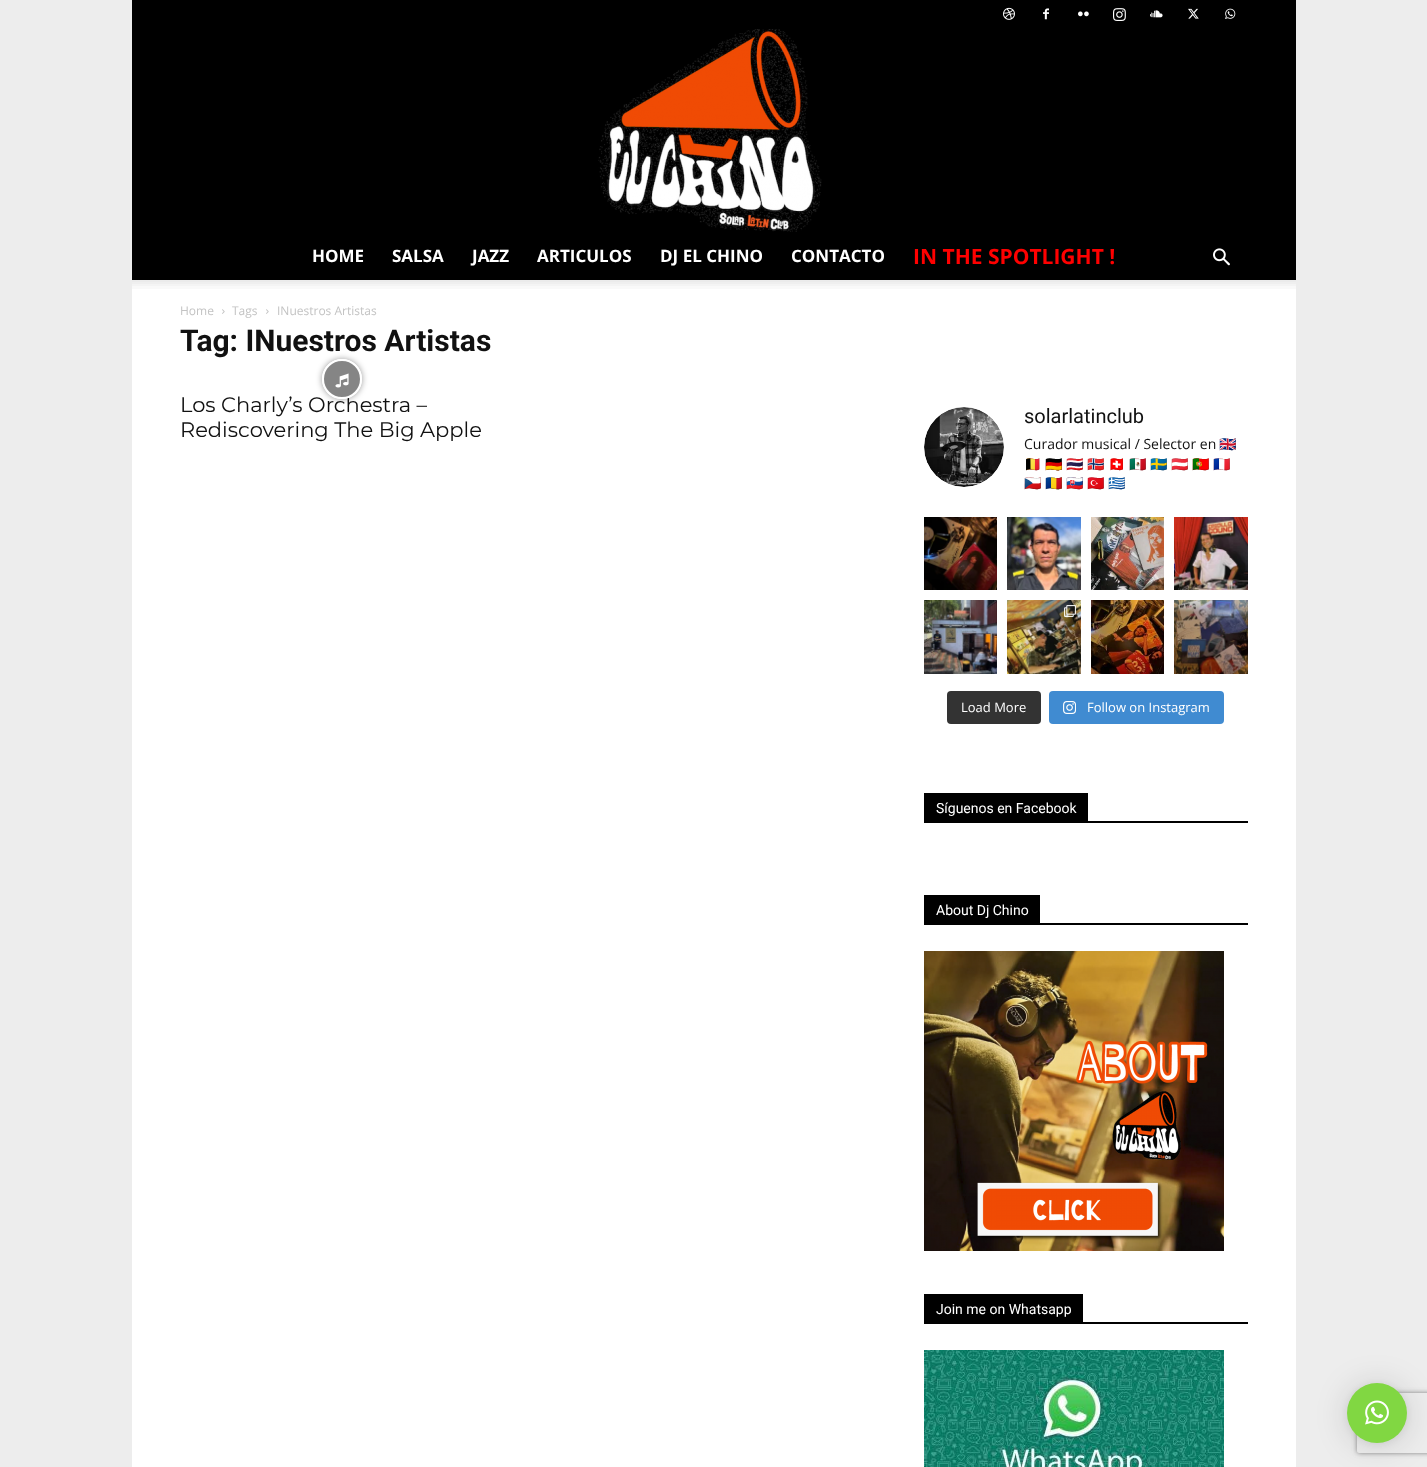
<?xml version="1.0" encoding="UTF-8"?>
<svg xmlns="http://www.w3.org/2000/svg" width="1427" height="1467">
    <defs>
        <clipPath id="clip1"><path d="M 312 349 H 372 V 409 H 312 Z M 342 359 C 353 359 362 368 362 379 C 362 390 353 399 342 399 C 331 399 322 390 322 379 C 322 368 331 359 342 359 Z" clip-rule="evenodd"/></clipPath>
        <filter id="blur1" x="-50%" y="-200%" width="200%" height="500%"><feGaussianBlur stdDeviation="3"/></filter>
        <filter id="blur2" x="-50%" y="-200%" width="200%" height="500%"><feGaussianBlur stdDeviation="16"/></filter>
        <clipPath id="clip2"><path d="M 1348 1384 H 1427 V 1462 H 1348 Z M 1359 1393 H 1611 C 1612 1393 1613 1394 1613 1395 V 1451 C 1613 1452 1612 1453 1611 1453 H 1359 C 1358 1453 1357 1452 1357 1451 V 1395 C 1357 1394 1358 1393 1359 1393 Z" clip-rule="evenodd"/></clipPath>
        <filter id="blur3" x="-50%" y="-200%" width="200%" height="500%"><feGaussianBlur stdDeviation="2.5"/></filter>
    </defs>
    <rect width="100%" height="100%" fill="#EDEDED"/>
    <rect x="132" y="0" width="1164" height="280" fill="#000000"/>
    <image x="598" y="29" width="224" height="203" href="img_01.png"/>
    <image x="1003" y="7" width="12" height="13" href="img_02.png"/>
    <image x="1043" y="8" width="6" height="12" href="img_03.png"/>
    <image x="1078" y="11" width="11" height="6" href="img_04.png"/>
    <image x="1113" y="8" width="13" height="13" href="img_05.png"/>
    <image x="1150" y="10" width="13" height="8" href="img_06.png"/>
    <image x="1188" y="8" width="11" height="11" href="img_07.png"/>
    <image x="1225" y="8" width="11" height="11" href="img_08.png"/>
    <text x="312" y="262" font-family="Open Sans" font-size="17" font-weight="700" fill="#FFFFFF">HOME</text>
    <text x="392" y="262" font-family="Open Sans" font-size="17" font-weight="700" fill="#FFFFFF">SALSA</text>
    <text x="472" y="262" font-family="Open Sans" font-size="17" font-weight="700" fill="#FFFFFF">JAZZ</text>
    <text x="537" y="262" font-family="Open Sans" font-size="17" font-weight="700" fill="#FFFFFF">ARTICULOS</text>
    <text x="660" y="262" font-family="Open Sans" font-size="17" font-weight="700" fill="#FFFFFF">DJ EL CHINO</text>
    <text x="791" y="262" font-family="Open Sans" font-size="17" font-weight="700" fill="#FFFFFF">CONTACTO</text>
    <text x="913" y="264" font-family="Open Sans" font-size="21" font-weight="700" fill="#FF0000">IN THE SPOTLIGHT !</text>
    <image x="1213" y="248" width="17" height="18" href="img_09.png"/>
    <rect x="132" y="280" width="1164" height="1187" fill="#FFFFFF"/>
    <image x="132" y="280" width="1164" height="9" href="img_10.png"/>
    <text x="180" y="315" font-family="Open Sans" font-size="12" fill="#C3C3C3">Home</text>
    <image x="222" y="309" width="3" height="5" href="img_11.png"/>
    <text x="232" y="315" font-family="Open Sans" font-size="12" fill="#C3C3C3">Tags</text>
    <image x="266" y="309" width="3" height="5" href="img_11.png"/>
    <text x="277" y="315" font-family="Open Sans" font-size="12" fill="#C3C3C3">INuestros Artistas</text>
    <text x="180" y="351" font-family="Roboto" font-size="30" font-weight="700" fill="#111111">Tag: INuestros Artistas</text>
    <g clip-path="url(#clip1)">
        <rect x="322" y="359" width="40" height="40" rx="20" fill="#000000" fill-opacity="0.4" filter="url(#blur1)"/>
    </g>
    <text x="180" y="412" font-family="Montserrat" font-size="21" fill="#111111">Los Charly’s Orchestra –</text>
    <circle cx="342" cy="379" r="19" fill="#000000" fill-opacity="0.48" stroke="#FFFFFF" stroke-width="2"/>
    <image x="335" y="373" width="14" height="15" href="img_12.png"/>
    <text x="180" y="437" font-family="Montserrat" font-size="21" fill="#111111">Rediscovering The Big Apple</text>
    <image x="924" y="407" width="80" height="80" href="img_13.png"/>
    <text x="1024" y="423" font-family="Roboto" font-size="20" fill="#111111">solarlatinclub</text>
    <text x="1024" y="449" font-family="Open Sans" font-size="14" fill="#111111">Curador musical / Selector en</text>
    <text x="1219" y="449" font-family="Noto Color Emoji" font-size="14" fill="#111111">🇬🇧</text>
    <text x="1024" y="469" font-family="Noto Color Emoji" font-size="14" fill="#111111">🇧🇪</text>
    <text x="1045" y="469" font-family="Noto Color Emoji" font-size="14" fill="#111111">🇩🇪</text>
    <text x="1066" y="469" font-family="Noto Color Emoji" font-size="14" fill="#111111">🇹🇭</text>
    <text x="1087" y="469" font-family="Noto Color Emoji" font-size="14" fill="#111111">🇧🇻</text>
    <text x="1108" y="469" font-family="Noto Color Emoji" font-size="14" fill="#111111">🇨🇭</text>
    <text x="1129" y="469" font-family="Noto Color Emoji" font-size="14" fill="#111111">🇲🇽</text>
    <text x="1150" y="469" font-family="Noto Color Emoji" font-size="14" fill="#111111">🇸🇪</text>
    <text x="1171" y="469" font-family="Noto Color Emoji" font-size="14" fill="#111111">🇦🇹</text>
    <text x="1192" y="469" font-family="Noto Color Emoji" font-size="14" fill="#111111">🇵🇹</text>
    <text x="1213" y="469" font-family="Noto Color Emoji" font-size="14" fill="#111111">🇨🇵</text>
    <text x="1024" y="488" font-family="Noto Color Emoji" font-size="14" fill="#111111">🇨🇿</text>
    <text x="1045" y="488" font-family="Noto Color Emoji" font-size="14" fill="#111111">🇷🇴</text>
    <text x="1066" y="488" font-family="Noto Color Emoji" font-size="14" fill="#111111">🇸🇰</text>
    <text x="1087" y="488" font-family="Noto Color Emoji" font-size="14" fill="#111111">🇹🇷</text>
    <text x="1108" y="488" font-family="Noto Color Emoji" font-size="14" fill="#111111">🇬🇷</text>
    <image x="924" y="517" width="73" height="73" href="img_14.png"/>
    <image x="1007" y="517" width="74" height="73" href="img_15.png"/>
    <image x="1091" y="517" width="73" height="73" href="img_16.png"/>
    <image x="1174" y="517" width="74" height="73" href="img_17.png"/>
    <image x="924" y="600" width="73" height="74" href="img_18.png"/>
    <image x="1007" y="600" width="74" height="74" href="img_19.png"/>
    <image x="1064" y="605" width="12" height="12" href="img_20.png"/>
    <image x="1091" y="600" width="73" height="74" href="img_21.png"/>
    <image x="1174" y="600" width="74" height="74" href="img_22.png"/>
    <rect x="947" y="691" width="94" height="33" rx="4" fill="#333333"/>
    <text x="961" y="712" font-family="Open Sans" font-size="13" fill="#FFFFFF">Load More</text>
    <rect x="1049" y="691" width="175" height="33" rx="4" fill="#408BD1"/>
    <image x="1063" y="701" width="13" height="13" href="img_23.png"/>
    <text x="1087" y="712" font-family="Open Sans" font-size="13" fill="#FFFFFF">Follow on Instagram</text>
    <rect x="924" y="821" width="324" height="2" fill="#000000"/>
    <rect x="924" y="793" width="164" height="28" fill="#000000"/>
    <text x="936" y="813" font-family="Roboto" font-size="14" fill="#FFFFFF">Síguenos en Facebook</text>
    <rect x="924" y="923" width="324" height="2" fill="#000000"/>
    <rect x="924" y="895" width="116" height="28" fill="#000000"/>
    <text x="936" y="915" font-family="Roboto" font-size="14" fill="#FFFFFF">About Dj Chino</text>
    <image x="924" y="951" width="300" height="300" href="img_24.png"/>
    <rect x="924" y="1322" width="324" height="2" fill="#000000"/>
    <rect x="924" y="1294" width="159" height="28" fill="#000000"/>
    <text x="936" y="1314" font-family="Roboto" font-size="14" fill="#FFFFFF">Join me on Whatsapp</text>
    <image x="924" y="1350" width="300" height="117" href="img_25.png"/>
    <rect x="1347" y="1385" width="60" height="60" rx="30" fill="#000000" fill-opacity="0.16" filter="url(#blur2)"/>
    <rect x="1347" y="1384" width="60" height="60" rx="30" fill="#000000" fill-opacity="0.06" filter="url(#blur1)"/>
    <g clip-path="url(#clip2)">
        <rect x="1357" y="1393" width="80" height="60" rx="2" fill="#808080" filter="url(#blur3)"/>
    </g>
    <circle cx="1377" cy="1413" r="30" fill="#81D742"/>
    <image x="1365" y="1400" width="24" height="25" href="img_26.png"/>
</svg>
